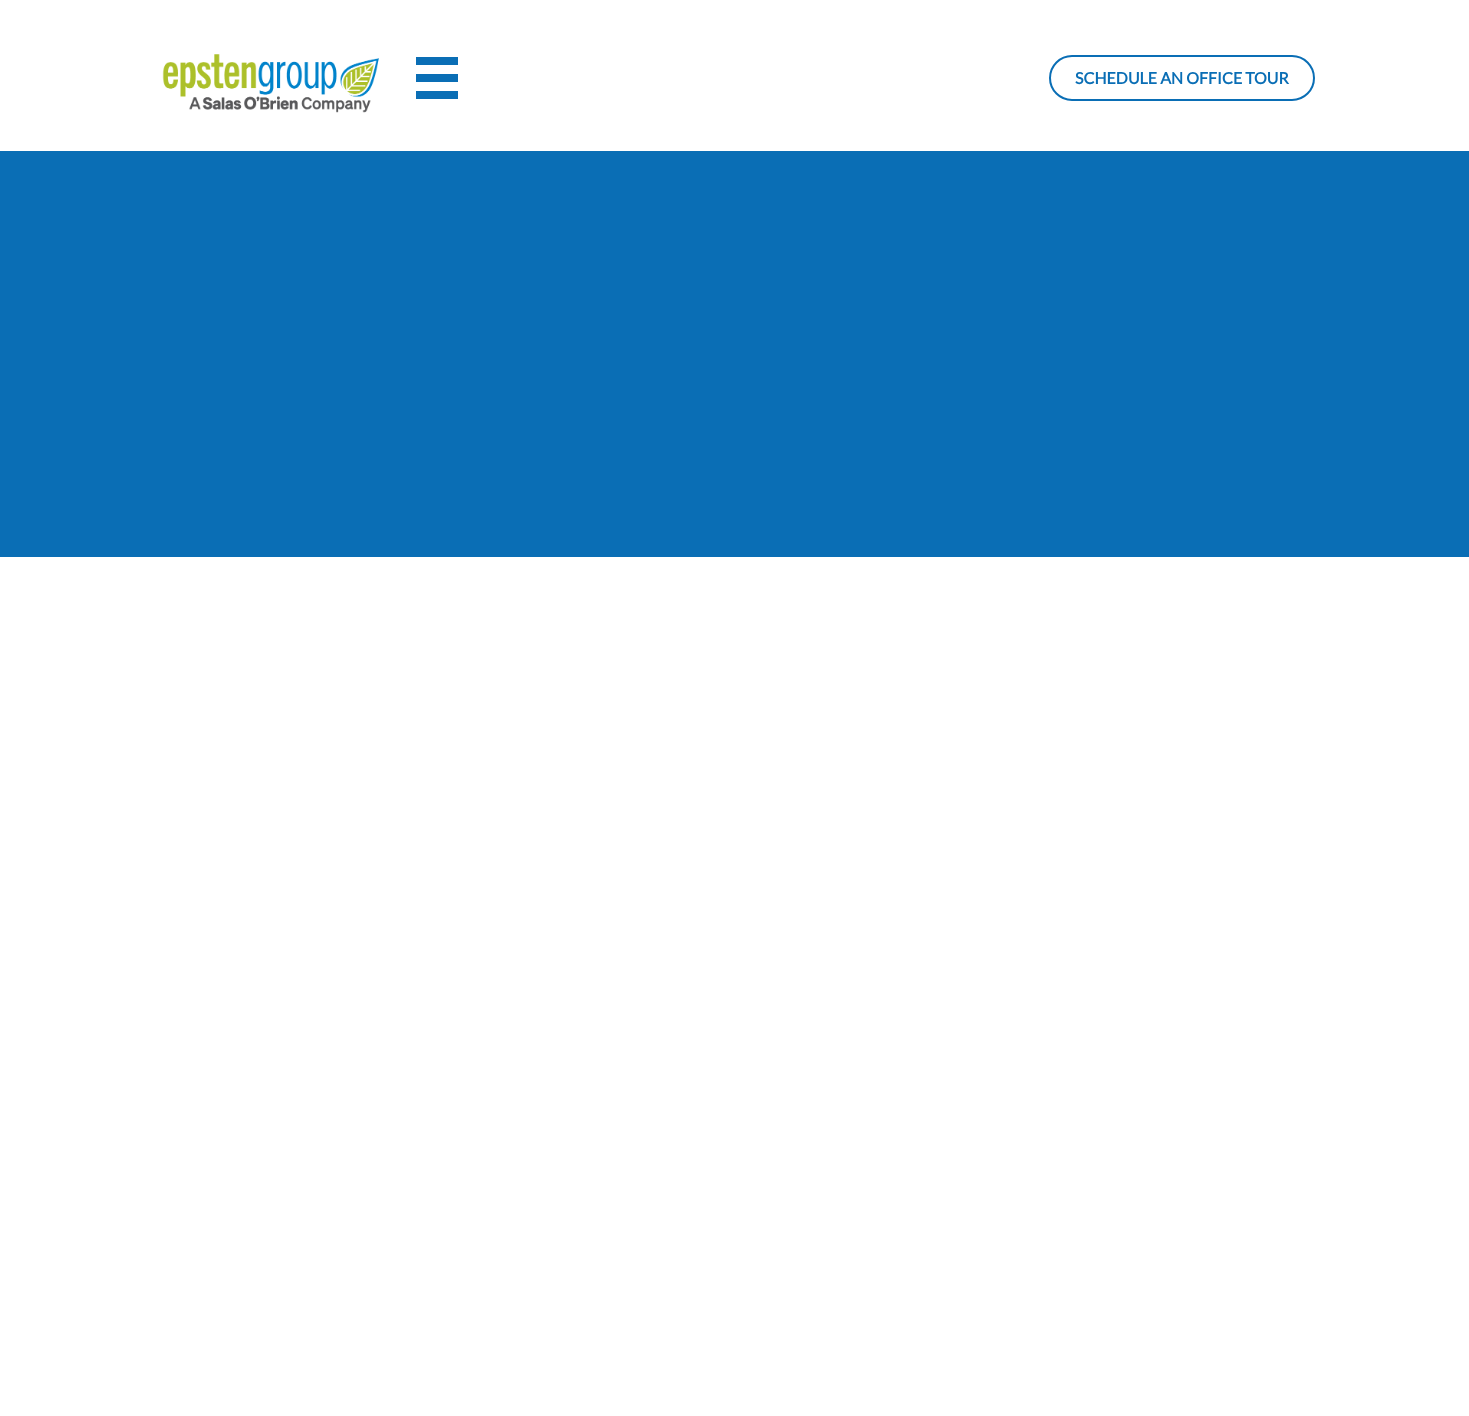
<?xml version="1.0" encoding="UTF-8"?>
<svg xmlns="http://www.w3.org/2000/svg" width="1469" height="1416">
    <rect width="100%" height="100%" fill="#FFFFFF"/>
    <image x="162" y="54" width="217" height="59" href="img_01.png"/>
    <rect x="416" y="57" width="42" height="8" fill="#0A6EB5"/>
    <rect x="416" y="74" width="42" height="8" fill="#0A6EB5"/>
    <rect x="416" y="91" width="42" height="8" fill="#0A6EB5"/>
    <rect x="1050" y="56" width="264" height="44" rx="22" fill="none" stroke="#0A6EB5" stroke-width="2"/>
    <text x="1075" y="84" font-family="Lato" font-size="16" font-weight="700" fill="#0A6EB5">SCHEDULE AN OFFICE TOUR</text>
    <rect x="0" y="151" width="1469" height="406" fill="#0A6EB5"/>
</svg>
